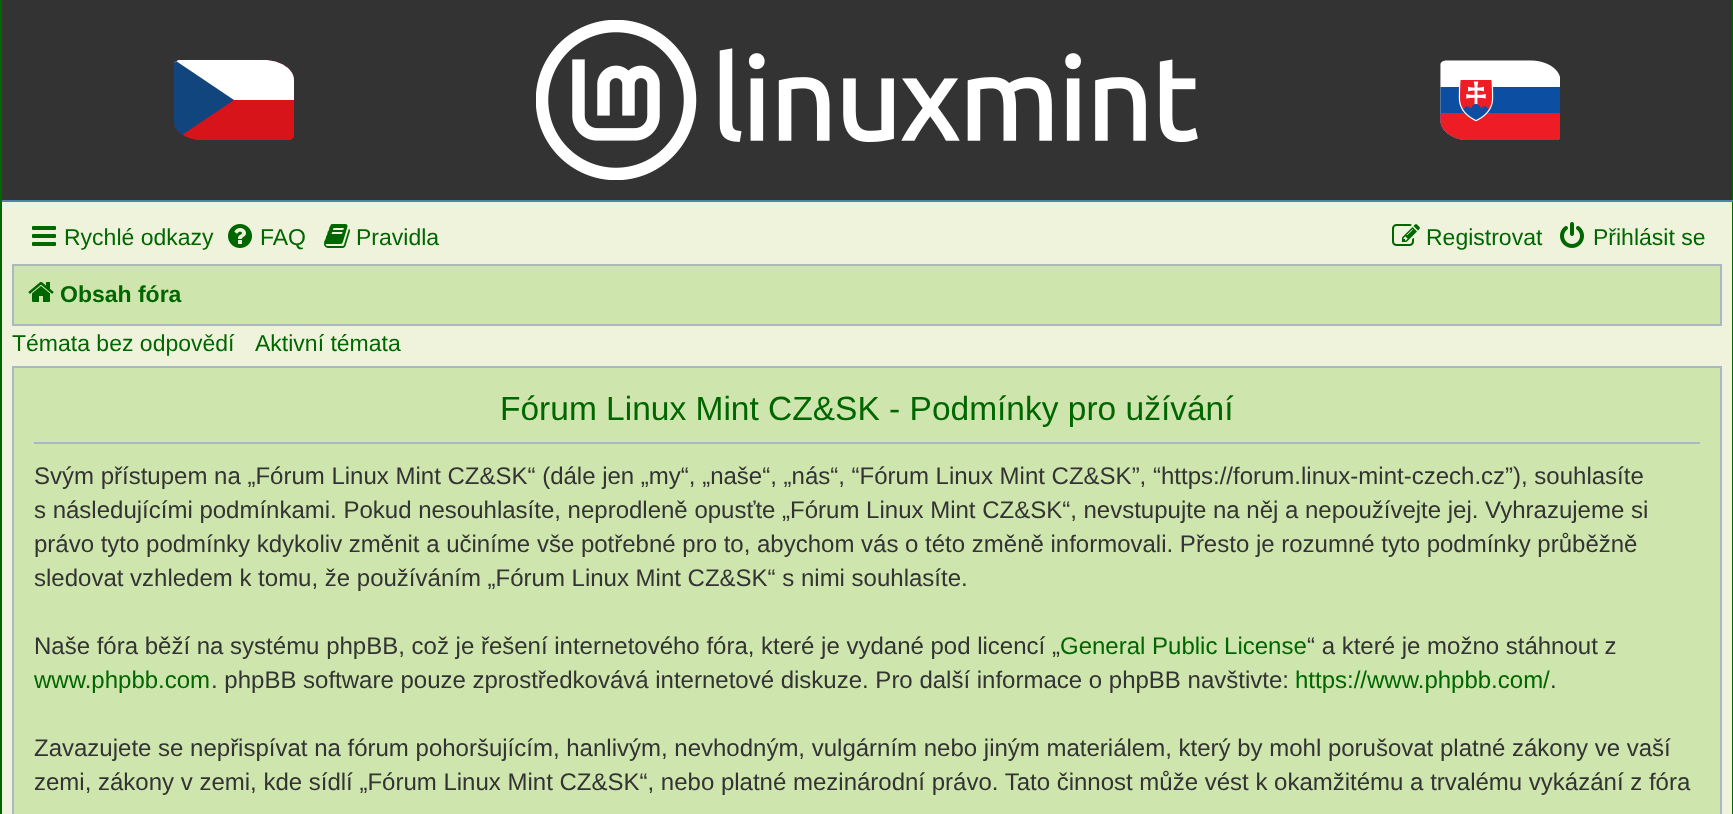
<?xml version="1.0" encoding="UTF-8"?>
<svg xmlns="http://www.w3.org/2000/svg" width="1733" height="814">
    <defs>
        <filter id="blur1" x="-50%" y="-200%" width="200%" height="500%"><feGaussianBlur stdDeviation="10"/></filter>
    </defs>
    <rect width="100%" height="100%" fill="#333333"/>
    <rect x="1732" y="0" width="1" height="202" fill="#006600"/>
    <rect x="0" y="200" width="1733" height="2" fill="#4787A7"/>
    <rect x="0" y="0" width="2" height="202" fill="#006600"/>
    <path d="M 180 60 H 264 C 280 60 294 69 294 80 V 136 C 294 138 292 139 290 140 H 197 C 185 138 176 132 174 124 V 63 C 175 62 177 60 180 60 Z" fill="#D7141A"/>
    <path d="M 180 60 H 264 C 280 60 294 69 294 80 V 100 H 174 V 63 C 175 62 177 60 180 60 Z" fill="#FFFFFF"/>
    <path d="M 234 100 L 182 135 C 178 132 175 128 174 124 V 63 L 176 61 Z" fill="#11457E"/>
    <image x="536" y="20" width="662" height="160" href="img_01.png"/>
    <image x="1440" y="60" width="120" height="80" href="img_02.png"/>
    <rect x="-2" y="220" width="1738" height="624" fill="#808080" filter="url(#blur1)"/>
    <rect x="2" y="202" width="1730" height="612" fill="#EFF3DB"/>
    <rect x="1732" y="202" width="1" height="612" fill="#006600"/>
    <rect x="0" y="202" width="2" height="612" fill="#006600"/>
    <image x="32" y="226" width="24" height="20" href="img_03.png"/>
    <text x="64" y="245" font-family="Liberation Sans" font-size="23" fill="#006600">Rychlé odkazy</text>
    <image x="228" y="224" width="24" height="24" href="img_04.png"/>
    <text x="260" y="245" font-family="Liberation Sans" font-size="23" fill="#006600">FAQ</text>
    <image x="324" y="224" width="26" height="24" href="img_05.png"/>
    <text x="356" y="245" font-family="Liberation Sans" font-size="23" fill="#006600">Pravidla</text>
    <image x="1392" y="224" width="28" height="22" href="img_06.png"/>
    <text x="1426" y="245" font-family="Liberation Sans" font-size="23" fill="#006600">Registrovat</text>
    <image x="1560" y="222" width="24" height="26" href="img_07.png"/>
    <text x="1593" y="245" font-family="Liberation Sans" font-size="23" fill="#006600">Přihlásit se</text>
    <rect x="13" y="265" width="1708" height="60" fill="#CEE5AD" stroke="#A9B8C2" stroke-width="2"/>
    <image x="28" y="282" width="26" height="20" href="img_08.png"/>
    <text x="60" y="302" font-family="Liberation Sans" font-size="23" font-weight="700" fill="#006600">Obsah fóra</text>
    <text x="12" y="351" font-family="Liberation Sans" font-size="23" fill="#006600">Témata bez odpovědí</text>
    <text x="255" y="351" font-family="Liberation Sans" font-size="23" fill="#006600">Aktivní témata</text>
    <rect x="13" y="367" width="1708" height="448" fill="#CEE5AD" stroke="#A9B8C2" stroke-width="2"/>
    <rect x="34" y="442" width="1666" height="2" fill="#A9B8C2"/>
    <text x="500" y="420" font-family="Liberation Sans" font-size="33.5" fill="#006600">Fórum Linux Mint CZ&amp;SK - Podmínky pro užívání</text>
    <text font-family="Liberation Sans" font-size="24" fill="#333333">
        <tspan x="34" y="484">Svým přístupem na „Fórum Linux Mint CZ&amp;SK“ (dále jen „my“, „naše“, „nás“, “Fórum Linux Mint CZ&amp;SK”, “https://forum.linux-mint-czech.cz”), souhlasíte</tspan>
        <tspan x="34" y="518">s následujícími podmínkami. Pokud nesouhlasíte, neprodleně opusťte „Fórum Linux Mint CZ&amp;SK“, nevstupujte na něj a nepoužívejte jej. Vyhrazujeme si</tspan>
        <tspan x="34" y="552">právo tyto podmínky kdykoliv změnit a učiníme vše potřebné pro to, abychom vás o této změně informovali. Přesto je rozumné tyto podmínky průběžně</tspan>
        <tspan x="34" y="586">sledovat vzhledem k tomu, že používáním „Fórum Linux Mint CZ&amp;SK“ s nimi souhlasíte.</tspan>
    </text>
    <text x="34" y="654" font-family="Liberation Sans" font-size="24" fill="#333333">Naše fóra běží na systému phpBB, což je řešení internetového fóra, které je vydané pod licencí „</text>
    <text x="1060" y="654" font-family="Liberation Sans" font-size="24" fill="#006600">General Public License</text>
    <text x="1307" y="654" font-family="Liberation Sans" font-size="24" fill="#333333">“ a které je možno stáhnout z</text>
    <text x="34" y="688" font-family="Liberation Sans" font-size="24" fill="#006600">www.phpbb.com</text>
    <text x="211" y="688" font-family="Liberation Sans" font-size="24" fill="#333333">. phpBB software pouze zprostředkovává internetové diskuze. Pro další informace o phpBB navštivte:</text>
    <text x="1295" y="688" font-family="Liberation Sans" font-size="24" fill="#006600">https://www.phpbb.com/</text>
    <text x="1550" y="688" font-family="Liberation Sans" font-size="24" fill="#333333">.</text>
    <text font-family="Liberation Sans" font-size="24" fill="#333333">
        <tspan x="34" y="756">Zavazujete se nepřispívat na fórum pohoršujícím, hanlivým, nevhodným, vulgárním nebo jiným materiálem, který by mohl porušovat platné zákony ve vaší</tspan>
        <tspan x="34" y="790">zemi, zákony v zemi, kde sídlí „Fórum Linux Mint CZ&amp;SK“, nebo platné mezinárodní právo. Tato činnost může vést k okamžitému a trvalému vykázání z fóra</tspan>
    </text>
</svg>
